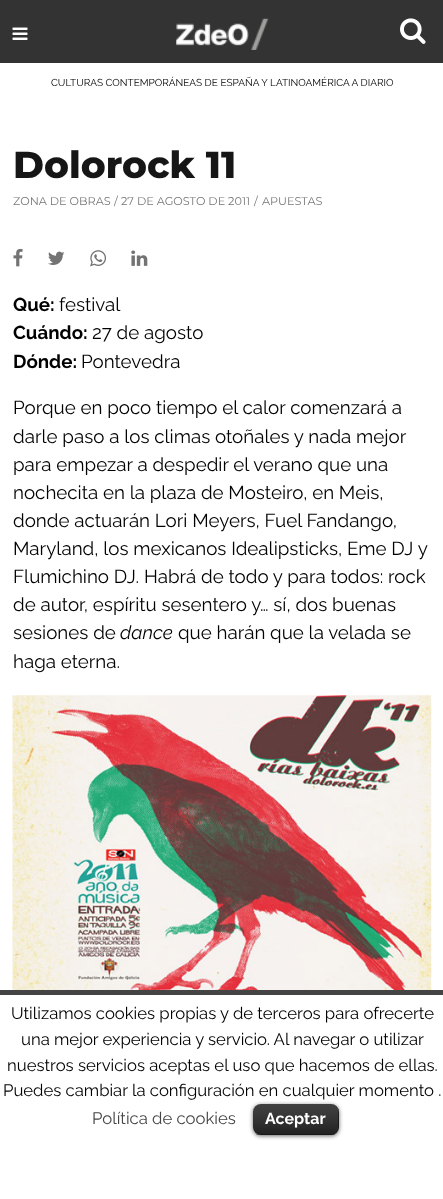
<?xml version="1.0" encoding="UTF-8"?>
<svg xmlns="http://www.w3.org/2000/svg" width="443" height="1199">
    <defs>
        <filter id="blur1" x="-50%" y="-200%" width="200%" height="500%"><feGaussianBlur stdDeviation="2"/></filter>
    </defs>
    <rect width="100%" height="100%" fill="#FFFFFF"/>
    <rect x="0" y="0" width="443" height="63" fill="#333333"/>
    <image x="12" y="27" width="16" height="13" href="img_01.png"/>
    <image x="176" y="18" width="93" height="32" href="img_02.png"/>
    <image x="400" y="18" width="26" height="26" href="img_03.png"/>
    <text x="51" y="86" font-family="Raleway" font-size="10" fill="#000000">CULTURAS CONTEMPORÁNEAS DE ESPAÑA Y LATINOAMÉRICA A DIARIO</text>
    <text x="13" y="178" font-family="Montserrat" font-size="37.5" font-weight="800" fill="#161616">Dolorock 11</text>
    <text x="13" y="205" font-family="Montserrat" font-size="11.25" fill="#777777">ZONA DE OBRAS</text>
    <text x="114" y="205" font-family="Montserrat" font-size="11.25" fill="#777777">/</text>
    <text x="121" y="205" font-family="Montserrat" font-size="11.25" fill="#777777">27 DE AGOSTO DE 2011</text>
    <text x="254" y="205" font-family="Montserrat" font-size="11.25" fill="#777777">/</text>
    <text x="262" y="205" font-family="Montserrat" font-size="11.25" fill="#777777">APUESTAS</text>
    <image x="13" y="248" width="10" height="19" href="img_04.png"/>
    <image x="48" y="251" width="17" height="14" href="img_05.png"/>
    <image x="90" y="250" width="17" height="17" href="img_06.png"/>
    <image x="131" y="250" width="17" height="16" href="img_07.png"/>
    <text x="13" y="311" font-family="Raleway" font-size="18.75" font-weight="700" fill="#000000">Qué:</text>
    <text x="59" y="311" font-family="Raleway" font-size="18.75" fill="#000000">festival</text>
    <text x="13" y="339" font-family="Raleway" font-size="18.75" font-weight="700" fill="#000000">Cuándo:</text>
    <text x="92" y="339" font-family="Raleway" font-size="18.75" fill="#000000">27 de agosto</text>
    <text x="13" y="368" font-family="Raleway" font-size="18.75" font-weight="700" fill="#000000">Dónde:</text>
    <text x="81" y="368" font-family="Raleway" font-size="18.75" fill="#000000">Pontevedra</text>
    <text font-family="Raleway" font-size="18.75" fill="#000000">
        <tspan x="13" y="414">Porque en poco tiempo el calor comenzará a</tspan>
        <tspan x="13" y="443">darle paso a los climas otoñales y nada mejor</tspan>
        <tspan x="13" y="471">para empezar a despedir el verano que una</tspan>
        <tspan x="13" y="499">nochecita en la plaza de Mosteiro, en Meis,</tspan>
        <tspan x="13" y="527">donde actuarán Lori Meyers, Fuel Fandango,</tspan>
        <tspan x="13" y="555">Maryland, los mexicanos Idealipsticks, Eme DJ y</tspan>
        <tspan x="13" y="583">Flumichino DJ. Habrá de todo y para todos: rock</tspan>
        <tspan x="13" y="611">de autor, espíritu sesentero y… sí, dos buenas</tspan>
        <tspan x="13" y="639">sesiones de</tspan>
    </text>
    <text x="120" y="639" font-family="Raleway" font-size="18.75" font-weight="100" font-style="italic" fill="#000000">dance</text>
    <text x="178" y="639" font-family="Raleway" font-size="18.75" fill="#000000">que harán que la velada se</text>
    <text x="13" y="668" font-family="Raleway" font-size="18.75" fill="#000000">haga eterna.</text>
    <image x="12" y="695" width="420" height="295" href="img_08.png"/>
    <rect x="0" y="990" width="443" height="5" fill="#444444"/>
    <text x="11" y="1019" font-family="Raleway" font-size="16.7" fill="#000000">Utilizamos cookies propias y de terceros para ofrecerte</text>
    <text x="21" y="1045" font-family="Raleway" font-size="16.7" fill="#000000">una mejor experiencia y servicio. Al navegar o utilizar</text>
    <text x="7" y="1071" font-family="Raleway" font-size="16.7" fill="#000000">nuestros servicios aceptas el uso que hacemos de ellas.</text>
    <text x="3" y="1096" font-family="Raleway" font-size="16.7" fill="#000000">Puedes cambiar la configuración en cualquier momento .</text>
    <text x="92" y="1124" font-family="Raleway" font-size="16.7" fill="#444444">Política de cookies</text>
    <rect x="253" y="1105" width="86" height="31" rx="8" fill="#000000" fill-opacity="0.6" filter="url(#blur1)"/>
    <rect x="253" y="1104" width="86" height="31" rx="8" fill="#000000"/>
    <image x="253" y="1104" width="86" height="31" href="img_09.png"/>
    <rect x="256" y="1134" width="79" height="1" fill="#000000" fill-opacity="0.25"/>
    <text x="265" y="1124" font-family="Raleway" font-size="16" font-weight="700" fill="#FFFFFF">Aceptar</text>
</svg>
